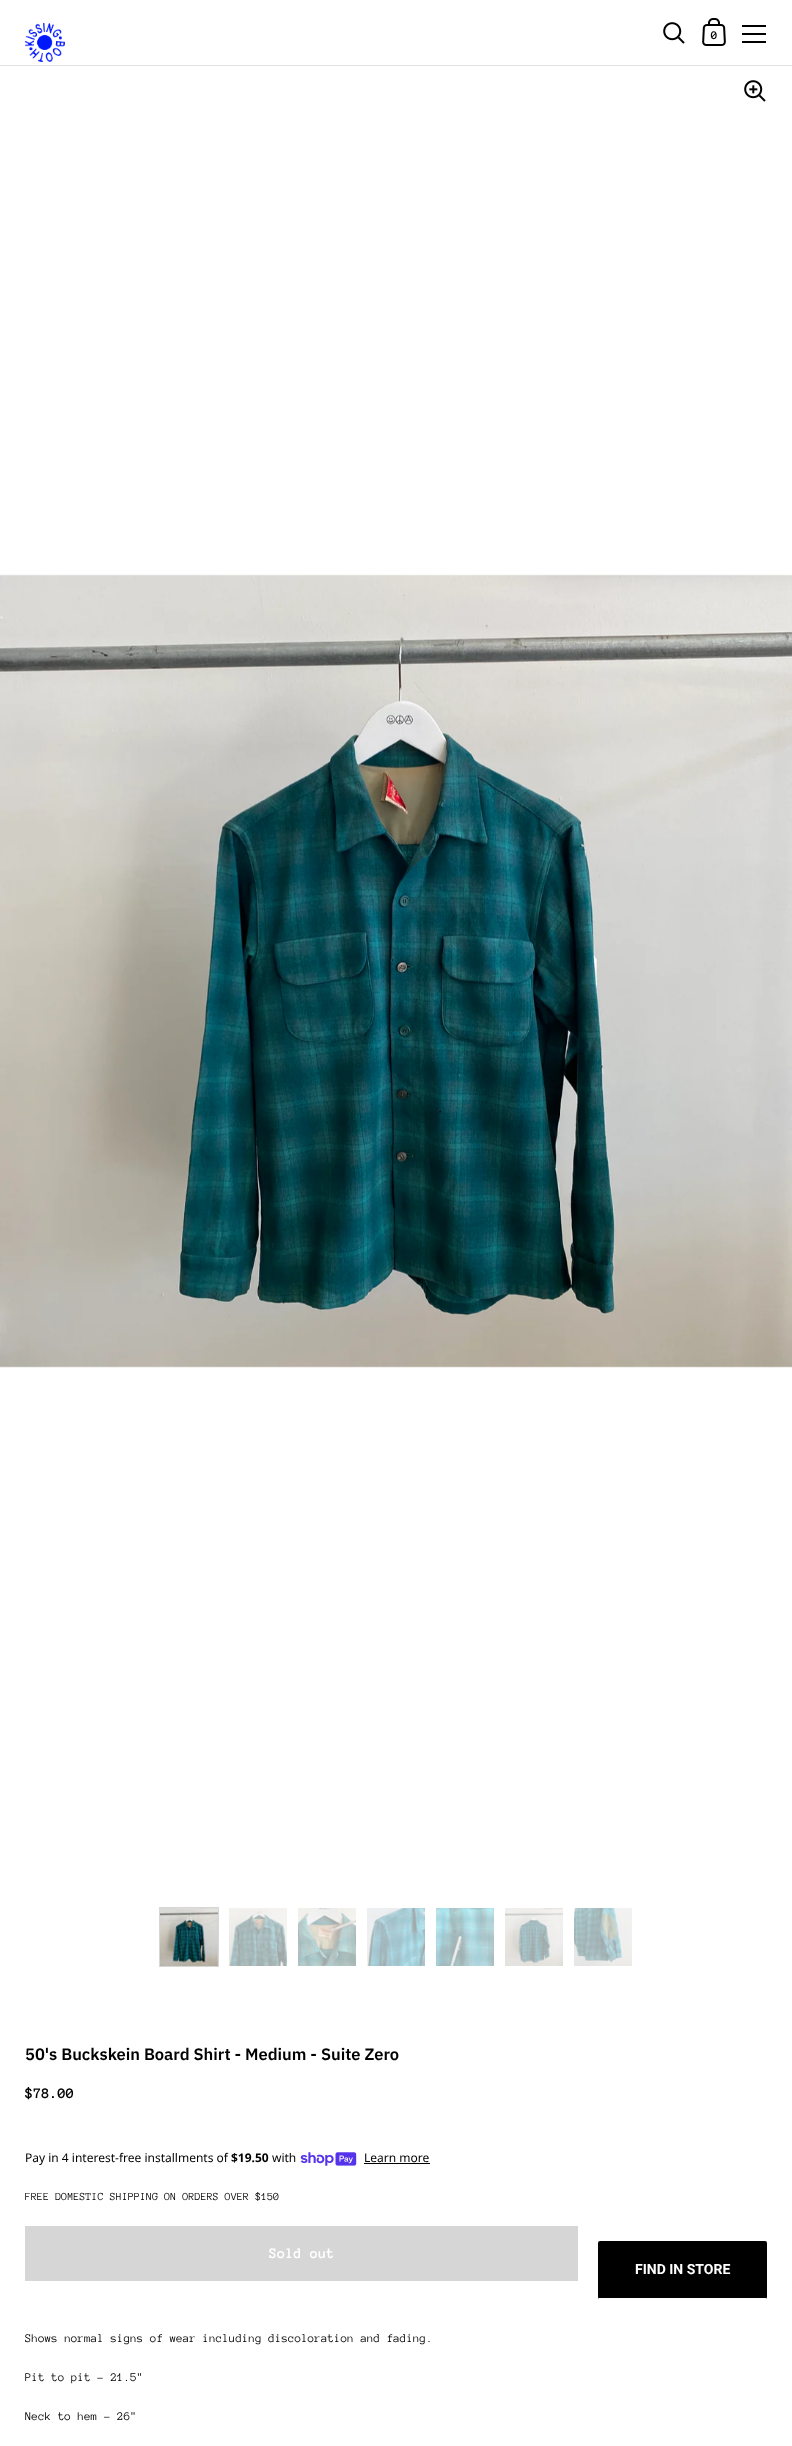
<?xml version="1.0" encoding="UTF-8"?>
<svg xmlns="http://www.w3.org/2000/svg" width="792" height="2446">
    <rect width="100%" height="100%" fill="#FFFFFF"/>
    <rect x="0" y="65" width="792" height="1" fill="#E0E0E0"/>
    <image x="25" y="23" width="40" height="39" href="img_01.png"/>
    <image x="663" y="22" width="22" height="22" href="img_02.png"/>
    <image x="702" y="18" width="24" height="28" href="img_03.png"/>
    <text x="711" y="39" font-family="Anonymous Pro" font-size="12" font-weight="700" fill="#000000">0</text>
    <rect x="742" y="25" width="24" height="2" fill="#000000"/>
    <rect x="742" y="33" width="24" height="2" fill="#000000"/>
    <rect x="742" y="41" width="24" height="2" fill="#000000"/>
    <image x="744" y="80" width="22" height="22" href="img_04.png"/>
    <image x="0" y="574" width="792" height="794" href="img_05.png"/>
    <rect x="159.5" y="1907.5" width="59" height="59" fill="none" stroke="#D6D6D6"/>
    <image x="160" y="1908" width="58" height="58" href="img_06.png"/>
    <rect x="229" y="1908" width="58" height="58" fill="#FCFCFC"/>
    <image x="229" y="1908" width="58" height="58" href="img_07.png"/>
    <rect x="298" y="1908" width="58" height="58" fill="#FCFCFC"/>
    <image x="298" y="1908" width="58" height="58" href="img_08.png"/>
    <rect x="367" y="1908" width="58" height="58" fill="#FCFCFC"/>
    <image x="367" y="1908" width="58" height="58" href="img_09.png"/>
    <rect x="436" y="1908" width="58" height="58" fill="#FCFCFC"/>
    <image x="436" y="1908" width="58" height="58" href="img_10.png"/>
    <rect x="505" y="1908" width="58" height="58" fill="#FCFCFC"/>
    <image x="505" y="1908" width="58" height="58" href="img_11.png"/>
    <rect x="574" y="1908" width="58" height="58" fill="#FCFCFC"/>
    <image x="574" y="1908" width="58" height="58" href="img_12.png"/>
    <text x="25" y="2060" font-family="IBM Plex Sans" font-size="16.5" font-weight="600" fill="#000000">50's Buckskein Board Shirt - Medium - Suite Zero</text>
    <text x="25" y="2098" font-family="Anonymous Pro" font-size="15" font-weight="700" fill="#000000">$78.00</text>
    <text x="25" y="2162" font-family="Noto Sans" font-size="12" fill="#000000">Pay in 4 interest-free installments of</text>
    <text x="231" y="2162" font-family="Noto Sans" font-size="12" font-weight="700" fill="#000000">$19.50</text>
    <text x="272" y="2162" font-family="Noto Sans" font-size="12" fill="#000000">with</text>
    <image x="300" y="2152" width="57" height="14" href="img_13.png"/>
    <text x="364" y="2162" font-family="Noto Sans" font-size="12" fill="#000000">Learn more</text>
    <rect x="364" y="2163" width="66" height="1" fill="#000000"/>
    <text x="25" y="2200" font-family="Anonymous Pro" font-size="11.1" fill="#000000">FREE DOMESTIC SHIPPING ON ORDERS OVER $150</text>
    <rect x="25" y="2226" width="553" height="55" fill="#D6D6D6"/>
    <text x="269" y="2258" font-family="Anonymous Pro" font-size="15" font-weight="700" fill="#FFFFFF">Sold out</text>
    <rect x="598" y="2241" width="169" height="58" rx="2" fill="#000000"/>
    <rect x="599" y="2298" width="167" height="1" fill="#FFFFFF"/>
    <text x="635" y="2274" font-family="Roboto" font-size="14" font-weight="700" fill="#FFFFFF">FIND IN STORE</text>
    <text x="25" y="2342" font-family="Anonymous Pro" font-size="12.05" fill="#000000">Shows normal signs of wear including discoloration and fading.</text>
    <text x="25" y="2381" font-family="Anonymous Pro" font-size="12.05" fill="#000000">Pit to pit - 21.5"</text>
    <text x="25" y="2420" font-family="Anonymous Pro" font-size="12.05" fill="#000000">Neck to hem - 26"</text>
</svg>
